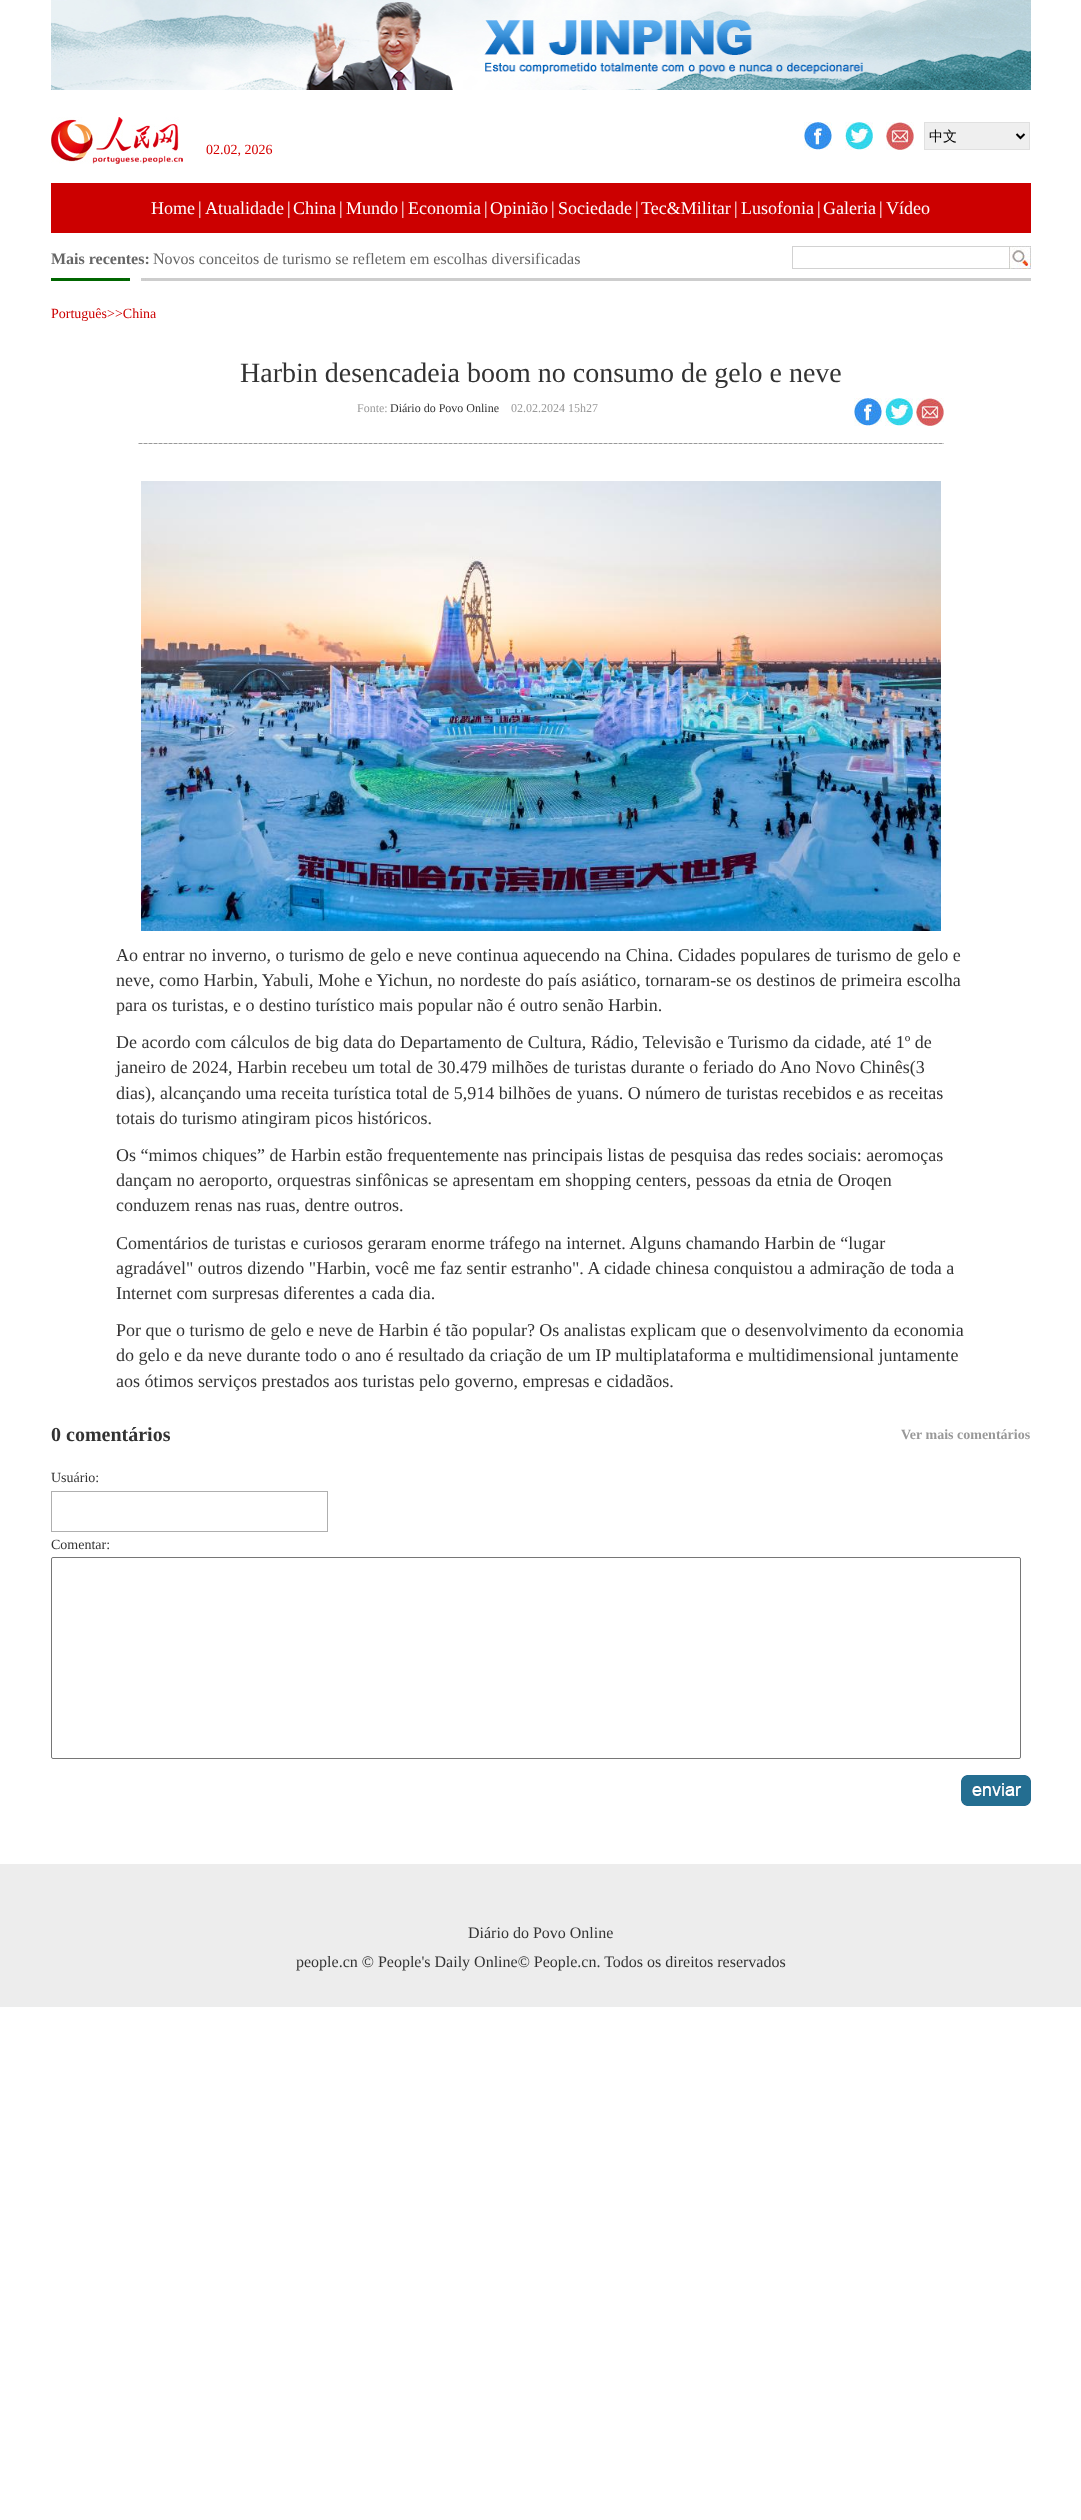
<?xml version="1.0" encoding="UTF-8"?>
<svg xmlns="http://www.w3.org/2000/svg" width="1081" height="2520">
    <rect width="100%" height="100%" fill="#FFFFFF"/>
    <image x="51" y="0" width="980" height="90" href="img_01.png"/>
    <image x="804" y="122" width="28" height="28" href="img_02.png"/>
    <image x="845" y="122" width="28" height="28" href="img_03.png"/>
    <image x="886" y="122" width="28" height="28" href="img_04.png"/>
    <rect x="924.5" y="122.5" width="105" height="27" fill="#EFEFEF" stroke="#E0E0E0"/>
    <path d="M 1016.5 134 L 1020.5 138 L 1024.5 134" fill="none" stroke="#000000" stroke-width="2"/>
    <text x="929" y="141" font-family="WenQuanYi Zen Hei" font-size="14" font-weight="500" fill="#000000">中文</text>
    <image x="51" y="117" width="132" height="47" href="img_05.png"/>
    <text x="206" y="154" font-family="Liberation Serif" font-size="14" fill="#D50000">02.02, 2026</text>
    <rect x="51" y="183" width="980" height="50" fill="#CC0000"/>
    <text x="151" y="214" font-family="Liberation Serif" font-size="18" fill="#FFFFFF">Home</text>
    <text x="198" y="214" font-family="Liberation Serif" font-size="18" fill="#FFFFFF">|</text>
    <text x="205" y="214" font-family="Liberation Serif" font-size="18" fill="#FFFFFF">Atualidade</text>
    <text x="287" y="214" font-family="Liberation Serif" font-size="18" fill="#FFFFFF">|</text>
    <text x="293" y="214" font-family="Liberation Serif" font-size="18" fill="#FFFFFF">China</text>
    <text x="339" y="214" font-family="Liberation Serif" font-size="18" fill="#FFFFFF">|</text>
    <text x="346" y="214" font-family="Liberation Serif" font-size="18" fill="#FFFFFF">Mundo</text>
    <text x="401" y="214" font-family="Liberation Serif" font-size="18" fill="#FFFFFF">|</text>
    <text x="408" y="214" font-family="Liberation Serif" font-size="18" fill="#FFFFFF">Economia</text>
    <text x="484" y="214" font-family="Liberation Serif" font-size="18" fill="#FFFFFF">|</text>
    <text x="490" y="214" font-family="Liberation Serif" font-size="18" fill="#FFFFFF">Opinião</text>
    <text x="551" y="214" font-family="Liberation Serif" font-size="18" fill="#FFFFFF">|</text>
    <text x="558" y="214" font-family="Liberation Serif" font-size="18" fill="#FFFFFF">Sociedade</text>
    <text x="635" y="214" font-family="Liberation Serif" font-size="18" fill="#FFFFFF">|</text>
    <text x="641" y="214" font-family="Liberation Serif" font-size="18" fill="#FFFFFF">Tec&amp;Militar</text>
    <text x="734" y="214" font-family="Liberation Serif" font-size="18" fill="#FFFFFF">|</text>
    <text x="741" y="214" font-family="Liberation Serif" font-size="18" fill="#FFFFFF">Lusofonia</text>
    <text x="817" y="214" font-family="Liberation Serif" font-size="18" fill="#FFFFFF">|</text>
    <text x="823" y="214" font-family="Liberation Serif" font-size="18" fill="#FFFFFF">Galeria</text>
    <text x="879" y="214" font-family="Liberation Serif" font-size="18" fill="#FFFFFF">|</text>
    <text x="886" y="214" font-family="Liberation Serif" font-size="18" fill="#FFFFFF">Vídeo</text>
    <image x="51" y="278" width="980" height="3" href="img_06.png"/>
    <text x="51" y="264" font-family="Liberation Serif" font-size="16" font-weight="700" fill="#666666">Mais recentes:</text>
    <text x="153" y="264" font-family="Liberation Serif" font-size="16" fill="#666666">Novos conceitos de turismo se refletem em escolhas diversificadas</text>
    <rect x="792" y="246" width="217" height="1" fill="#D2D2D2"/>
    <rect x="792" y="268" width="217" height="1" fill="#D2D2D2"/>
    <rect x="792" y="246" width="1" height="23" fill="#D2D2D2"/>
    <image x="1009" y="246" width="22" height="23" href="img_07.png"/>
    <text x="51" y="318" font-family="Liberation Serif" font-size="14" fill="#CC0000">Português&gt;&gt;China</text>
    <text x="240" y="382" font-family="Liberation Serif" font-size="28" fill="#333333">Harbin desencadeia boom no consumo de gelo e neve</text>
    <image x="138" y="443" width="806" height="1" href="img_08.png"/>
    <text x="357" y="412" font-family="Liberation Serif" font-size="12" fill="#999999">Fonte:</text>
    <text x="390" y="412" font-family="Liberation Serif" font-size="12" fill="#333333">Diário do Povo Online</text>
    <text x="511" y="412" font-family="Liberation Serif" font-size="12" fill="#999999">02.02.2024 15h27</text>
    <image x="854" y="398" width="28" height="28" href="img_02.png"/>
    <image x="885" y="398" width="28" height="28" href="img_03.png"/>
    <image x="916" y="398" width="28" height="28" href="img_04.png"/>
    <image x="141" y="481" width="800" height="450" href="img_09.png"/>
    <text font-family="Liberation Serif" font-size="18" fill="#333333">
        <tspan x="116" y="961">Ao entrar no inverno, o turismo de gelo e neve continua aquecendo na China. Cidades populares de turismo de gelo e</tspan>
        <tspan x="116" y="986">neve, como Harbin, Yabuli, Mohe e Yichun, no nordeste do país asiático, tornaram-se os destinos de primeira escolha</tspan>
        <tspan x="116" y="1011">para os turistas, e o destino turístico mais popular não é outro senão Harbin.</tspan>
    </text>
    <text font-family="Liberation Serif" font-size="18" fill="#333333">
        <tspan x="116" y="1048">De acordo com cálculos de big data do Departamento de Cultura, Rádio, Televisão e Turismo da cidade, até 1º de</tspan>
        <tspan x="116" y="1073">janeiro de 2024, Harbin recebeu um total de 30.479 milhões de turistas durante o feriado do Ano Novo Chinês(3</tspan>
        <tspan x="116" y="1099">dias), alcançando uma receita turística total de 5,914 bilhões de yuans. O número de turistas recebidos e as receitas</tspan>
        <tspan x="116" y="1124">totais do turismo atingiram picos históricos.</tspan>
    </text>
    <text font-family="Liberation Serif" font-size="18" fill="#333333">
        <tspan x="116" y="1161">Os “mimos chiques” de Harbin estão frequentemente nas principais listas de pesquisa das redes sociais: aeromoças</tspan>
        <tspan x="116" y="1186">dançam no aeroporto, orquestras sinfônicas se apresentam em shopping centers, pessoas da etnia de Oroqen</tspan>
        <tspan x="116" y="1211">conduzem renas nas ruas, dentre outros.</tspan>
    </text>
    <text font-family="Liberation Serif" font-size="18" fill="#333333">
        <tspan x="116" y="1249">Comentários de turistas e curiosos geraram enorme tráfego na internet. Alguns chamando Harbin de “lugar</tspan>
        <tspan x="116" y="1274">agradável" outros dizendo "Harbin, você me faz sentir estranho". A cidade chinesa conquistou a admiração de toda a</tspan>
        <tspan x="116" y="1299">Internet com surpresas diferentes a cada dia.</tspan>
    </text>
    <text font-family="Liberation Serif" font-size="18" fill="#333333">
        <tspan x="116" y="1336">Por que o turismo de gelo e neve de Harbin é tão popular? Os analistas explicam que o desenvolvimento da economia</tspan>
        <tspan x="116" y="1361">do gelo e da neve durante todo o ano é resultado da criação de um IP multiplataforma e multidimensional juntamente</tspan>
        <tspan x="116" y="1387">aos ótimos serviços prestados aos turistas pelo governo, empresas e cidadãos.</tspan>
    </text>
    <text x="51" y="1441" font-family="Liberation Serif" font-size="20" font-weight="700" fill="#333333">0 comentários</text>
    <text x="901" y="1439" font-family="Liberation Serif" font-size="14" font-weight="700" fill="#999999">Ver mais comentários</text>
    <text x="51" y="1482" font-family="Liberation Serif" font-size="14" fill="#333333">Usuário:</text>
    <rect x="51.5" y="1491.5" width="276" height="40" fill="none" stroke="#AFAFAF"/>
    <text x="51" y="1549" font-family="Liberation Serif" font-size="14" fill="#333333">Comentar:</text>
    <rect x="51.5" y="1557.5" width="969" height="201" rx="1.5" fill="none" stroke="#767676"/>
    <image x="961" y="1775" width="70" height="31" href="img_10.png"/>
    <rect x="0" y="1864" width="1081" height="143" fill="#EDEDED"/>
    <text x="468" y="1938" font-family="Liberation Serif" font-size="16" fill="#333333">Diário do Povo Online</text>
    <text x="296" y="1967" font-family="Liberation Serif" font-size="16" fill="#333333">people.cn © People's Daily Online© People.cn. Todos os direitos reservados</text>
</svg>
